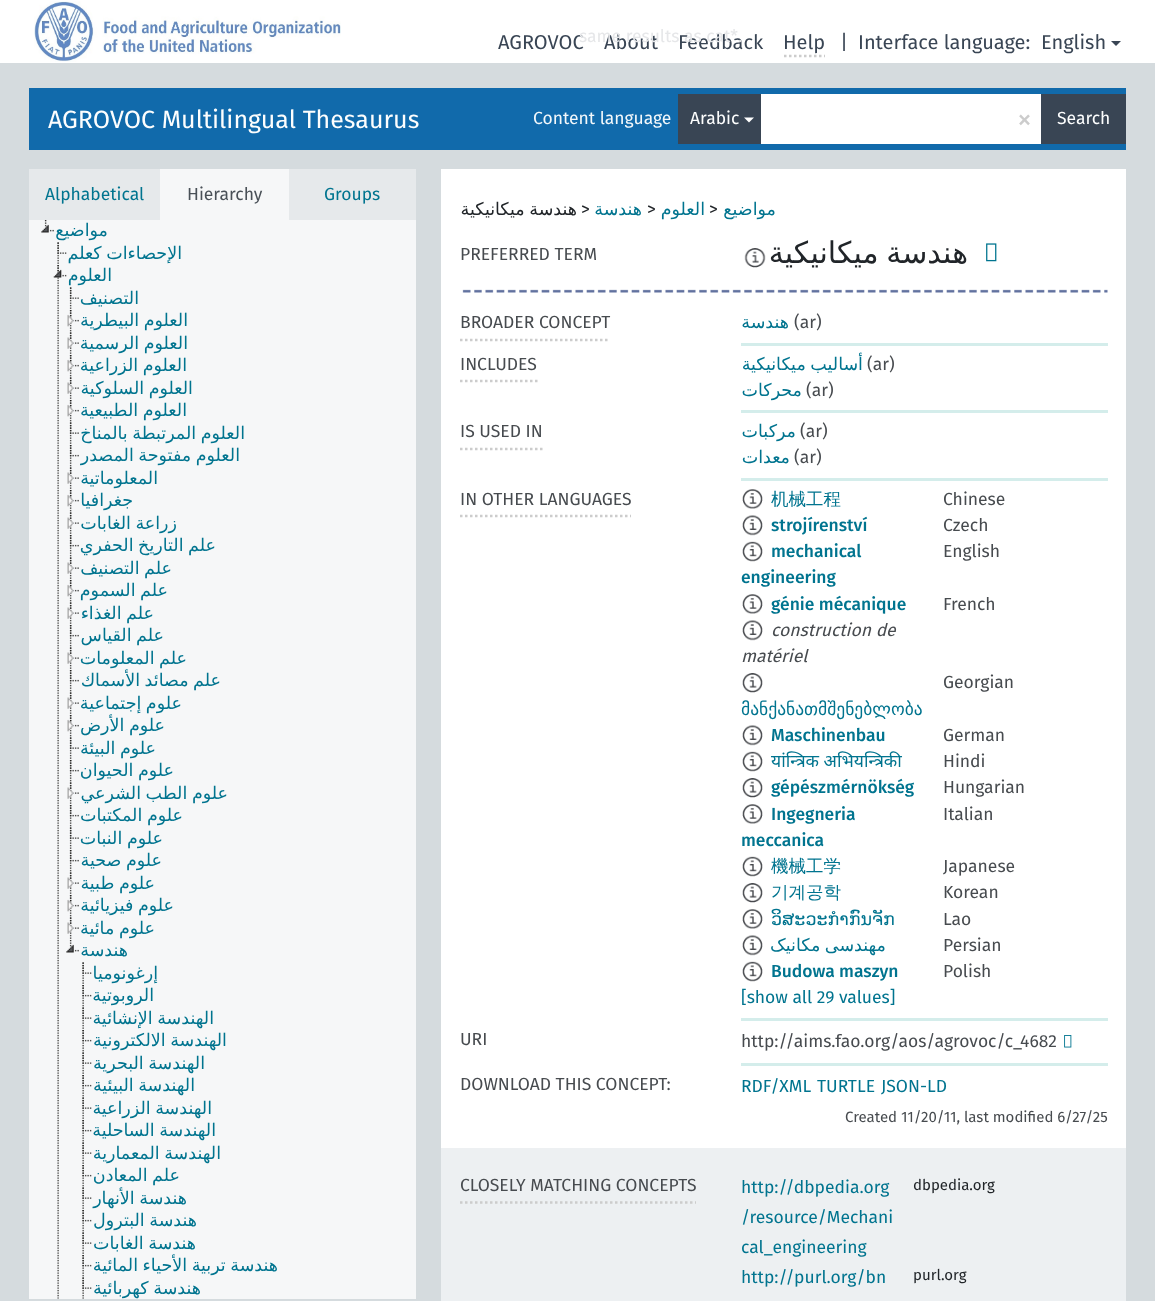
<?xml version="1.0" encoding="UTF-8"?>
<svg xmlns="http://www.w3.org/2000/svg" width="1155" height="1301">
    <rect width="100%" height="100%" fill="#D5DBDE"/>
    <rect x="0" y="0" width="1155" height="63" fill="#FFFFFF"/>
    <image x="34" y="1" width="307" height="61" href="img_01.png"/>
    <text x="498" y="49" font-family="Fira Sans" font-size="20" fill="#394554">AGROVOC</text>
    <text x="604" y="49" font-family="Fira Sans" font-size="20" fill="#394554">About</text>
    <text x="678" y="49" font-family="Fira Sans" font-size="20" fill="#394554">Feedback</text>
    <text x="579" y="42" font-family="Fira Sans" font-size="17.5" fill="#E6E7E9">same results as cat*.</text>
    <text x="783" y="49" font-family="Fira Sans" font-size="20" fill="#394554">Help</text>
    <path d="M 784 56 H 825" fill="none" stroke="#CCCCCC" stroke-width="2.5" stroke-dasharray="2.5 2.5"/>
    <text x="840" y="49" font-family="Fira Sans" font-size="20" fill="#394554">|</text>
    <text x="858" y="49" font-family="Fira Sans" font-size="20" fill="#394554">Interface language:</text>
    <text x="1041" y="49" font-family="Fira Sans" font-size="20" fill="#394554">English</text>
    <path d="M 1111 41 H 1121 L 1116 46 Z" fill="#394554"/>
    <rect x="29" y="88" width="1097" height="62" fill="#116AAB"/>
    <text x="48" y="128" font-family="Fira Sans" font-size="25" fill="#FDFEFE">AGROVOC Multilingual Thesaurus</text>
    <text x="533" y="124" font-family="Fira Sans" font-size="17.5" fill="#F3F8FB">Content language</text>
    <rect x="678" y="94" width="83" height="50" fill="#394554"/>
    <text x="690" y="124" font-family="Fira Sans" font-size="17.5" fill="#FDFEFE">Arabic</text>
    <path d="M 744 117.5 H 754 L 749 122.5 Z" fill="#FFFFFF"/>
    <rect x="761" y="94" width="280" height="50" fill="#FFFFFF"/>
    <text x="1017" y="129" font-family="Fira Sans" font-size="30" fill="#CCCCCC">×</text>
    <rect x="1041" y="94" width="85" height="50" fill="#394554"/>
    <text x="1057" y="124" font-family="Fira Sans" font-size="17.5" fill="#FDFEFE">Search</text>
    <rect x="29" y="169" width="131" height="51" fill="#E6E9EB"/>
    <text x="45" y="200" font-family="Fira Sans" font-size="17.5" fill="#00748F">Alphabetical</text>
    <rect x="160" y="169" width="129" height="51" fill="#F6F7F8"/>
    <text x="187" y="200" font-family="Fira Sans" font-size="17.5" fill="#495057">Hierarchy</text>
    <rect x="289" y="169" width="127" height="51" fill="#E6E9EB"/>
    <text x="324" y="200" font-family="Fira Sans" font-size="17.5" fill="#00748F">Groups</text>
    <rect x="29" y="220" width="387" height="1079" fill="#F6F7F8"/>
    <image x="41" y="220" width="13" height="13" href="img_02.png"/>
    <text x="108" y="236" font-family="DejaVu Sans" font-size="17.5" direction="rtl" fill="#00748F">مواضيع</text>
    <image x="57" y="242" width="2" height="22" href="img_03.png"/>
    <image x="57" y="242" width="10" height="12" href="img_04.png"/>
    <text x="182" y="259" word-spacing="-1" font-family="DejaVu Sans" font-size="17.5" direction="rtl" fill="#00748F">الإحصاءات كعلم</text>
    <image x="57" y="265" width="2" height="1034" href="img_05.png"/>
    <image x="53" y="265" width="14" height="13" href="img_06.png"/>
    <text x="112" y="281" font-family="DejaVu Sans" font-size="17.5" direction="rtl" fill="#00748F">العلوم</text>
    <image x="69" y="287" width="3" height="22" href="img_07.png"/>
    <image x="69" y="287" width="10" height="12" href="img_08.png"/>
    <text x="139" y="304" font-family="DejaVu Sans" font-size="17.5" direction="rtl" fill="#00748F">التصنيف</text>
    <image x="69" y="310" width="3" height="22" href="img_09.png"/>
    <image x="67" y="310" width="12" height="17" href="img_10.png"/>
    <text x="188" y="326" word-spacing="-1" font-family="DejaVu Sans" font-size="17.5" direction="rtl" fill="#00748F">العلوم البيطرية</text>
    <image x="69" y="332" width="3" height="22" href="img_11.png"/>
    <image x="67" y="332" width="12" height="17" href="img_12.png"/>
    <text x="188" y="349" word-spacing="-1" font-family="DejaVu Sans" font-size="17.5" direction="rtl" fill="#00748F">العلوم الرسمية</text>
    <image x="69" y="355" width="3" height="22" href="img_09.png"/>
    <image x="67" y="355" width="12" height="17" href="img_10.png"/>
    <text x="187" y="371" word-spacing="-1" font-family="DejaVu Sans" font-size="17.5" direction="rtl" fill="#00748F">العلوم الزراعية</text>
    <image x="69" y="377" width="3" height="22" href="img_11.png"/>
    <image x="67" y="377" width="12" height="17" href="img_12.png"/>
    <text x="193" y="394" word-spacing="-1" font-family="DejaVu Sans" font-size="17.5" direction="rtl" fill="#00748F">العلوم السلوكية</text>
    <image x="69" y="400" width="3" height="22" href="img_09.png"/>
    <image x="67" y="400" width="12" height="17" href="img_10.png"/>
    <text x="187" y="416" word-spacing="-1" font-family="DejaVu Sans" font-size="17.5" direction="rtl" fill="#00748F">العلوم الطبيعية</text>
    <image x="69" y="422" width="3" height="22" href="img_11.png"/>
    <image x="69" y="422" width="10" height="12" href="img_13.png"/>
    <text x="245" y="439" word-spacing="-1" font-family="DejaVu Sans" font-size="17.5" direction="rtl" fill="#00748F">العلوم المرتبطة بالمناخ</text>
    <image x="69" y="445" width="3" height="22" href="img_09.png"/>
    <image x="69" y="445" width="10" height="12" href="img_14.png"/>
    <text x="240" y="461" word-spacing="-1" font-family="DejaVu Sans" font-size="17.5" direction="rtl" fill="#00748F">العلوم مفتوحة المصدر</text>
    <image x="69" y="467" width="3" height="22" href="img_11.png"/>
    <image x="67" y="467" width="12" height="17" href="img_12.png"/>
    <text x="158" y="484" font-family="DejaVu Sans" font-size="17.5" direction="rtl" fill="#00748F">المعلوماتية</text>
    <image x="69" y="490" width="3" height="22" href="img_09.png"/>
    <image x="67" y="490" width="12" height="17" href="img_10.png"/>
    <text x="133" y="506" font-family="DejaVu Sans" font-size="17.5" direction="rtl" fill="#00748F">جغرافيا</text>
    <image x="69" y="512" width="3" height="22" href="img_15.png"/>
    <image x="67" y="512" width="12" height="17" href="img_16.png"/>
    <text x="177" y="529" word-spacing="-1" font-family="DejaVu Sans" font-size="17.5" direction="rtl" fill="#00748F">زراعة الغابات</text>
    <image x="69" y="535" width="3" height="22" href="img_09.png"/>
    <image x="69" y="535" width="10" height="12" href="img_14.png"/>
    <text x="216" y="551" word-spacing="-1" font-family="DejaVu Sans" font-size="17.5" direction="rtl" fill="#00748F">علم التاريخ الحفري</text>
    <image x="69" y="557" width="3" height="22" href="img_11.png"/>
    <image x="67" y="557" width="12" height="17" href="img_12.png"/>
    <text x="172" y="574" word-spacing="-1" font-family="DejaVu Sans" font-size="17.5" direction="rtl" fill="#00748F">علم التصنيف</text>
    <image x="69" y="580" width="3" height="22" href="img_17.png"/>
    <image x="67" y="580" width="12" height="17" href="img_18.png"/>
    <text x="168" y="596" word-spacing="-1" font-family="DejaVu Sans" font-size="17.5" direction="rtl" fill="#00748F">علم السموم</text>
    <image x="69" y="602" width="3" height="22" href="img_11.png"/>
    <image x="67" y="602" width="12" height="17" href="img_12.png"/>
    <text x="154" y="619" word-spacing="-1" font-family="DejaVu Sans" font-size="17.5" direction="rtl" fill="#00748F">علم الغذاء</text>
    <image x="69" y="625" width="3" height="22" href="img_09.png"/>
    <image x="69" y="625" width="10" height="12" href="img_14.png"/>
    <text x="164" y="641" word-spacing="-1" font-family="DejaVu Sans" font-size="17.5" direction="rtl" fill="#00748F">علم القياس</text>
    <image x="69" y="647" width="3" height="22" href="img_11.png"/>
    <image x="67" y="647" width="12" height="17" href="img_12.png"/>
    <text x="187" y="664" word-spacing="-1" font-family="DejaVu Sans" font-size="17.5" direction="rtl" fill="#00748F">علم المعلومات</text>
    <image x="69" y="670" width="3" height="22" href="img_09.png"/>
    <image x="69" y="670" width="10" height="12" href="img_14.png"/>
    <text x="221" y="686" word-spacing="-1" font-family="DejaVu Sans" font-size="17.5" direction="rtl" fill="#00748F">علم مصائد الأسماك</text>
    <image x="69" y="692" width="3" height="22" href="img_11.png"/>
    <image x="67" y="692" width="12" height="17" href="img_12.png"/>
    <text x="182" y="709" word-spacing="-1" font-family="DejaVu Sans" font-size="17.5" direction="rtl" fill="#00748F">علوم إجتماعية</text>
    <image x="69" y="715" width="3" height="22" href="img_09.png"/>
    <image x="67" y="715" width="12" height="17" href="img_10.png"/>
    <text x="165" y="731" word-spacing="-1" font-family="DejaVu Sans" font-size="17.5" direction="rtl" fill="#00748F">علوم الأرض</text>
    <image x="69" y="737" width="3" height="22" href="img_11.png"/>
    <image x="69" y="737" width="10" height="12" href="img_13.png"/>
    <text x="156" y="754" word-spacing="-1" font-family="DejaVu Sans" font-size="17.5" direction="rtl" fill="#00748F">علوم البيئة</text>
    <image x="69" y="760" width="3" height="22" href="img_09.png"/>
    <image x="69" y="760" width="10" height="12" href="img_14.png"/>
    <text x="174" y="776" word-spacing="-1" font-family="DejaVu Sans" font-size="17.5" direction="rtl" fill="#00748F">علوم الحيوان</text>
    <image x="69" y="782" width="3" height="22" href="img_11.png"/>
    <image x="67" y="782" width="12" height="17" href="img_12.png"/>
    <text x="228" y="799" word-spacing="-1" font-family="DejaVu Sans" font-size="17.5" direction="rtl" fill="#00748F">علوم الطب الشرعي</text>
    <image x="69" y="805" width="3" height="22" href="img_09.png"/>
    <image x="69" y="805" width="10" height="12" href="img_14.png"/>
    <text x="183" y="821" word-spacing="-1" font-family="DejaVu Sans" font-size="17.5" direction="rtl" fill="#00748F">علوم المكتبات</text>
    <image x="69" y="827" width="3" height="22" href="img_11.png"/>
    <image x="69" y="827" width="10" height="12" href="img_13.png"/>
    <text x="163" y="844" word-spacing="-1" font-family="DejaVu Sans" font-size="17.5" direction="rtl" fill="#00748F">علوم النبات</text>
    <image x="69" y="850" width="3" height="22" href="img_09.png"/>
    <image x="69" y="850" width="10" height="12" href="img_14.png"/>
    <text x="162" y="866" word-spacing="-1" font-family="DejaVu Sans" font-size="17.5" direction="rtl" fill="#00748F">علوم صحية</text>
    <image x="69" y="872" width="3" height="22" href="img_11.png"/>
    <image x="67" y="872" width="12" height="17" href="img_12.png"/>
    <text x="155" y="889" word-spacing="-1" font-family="DejaVu Sans" font-size="17.5" direction="rtl" fill="#00748F">علوم طبية</text>
    <image x="69" y="895" width="3" height="22" href="img_09.png"/>
    <image x="67" y="895" width="12" height="17" href="img_10.png"/>
    <text x="174" y="911" word-spacing="-1" font-family="DejaVu Sans" font-size="17.5" direction="rtl" fill="#00748F">علوم فيزيائية</text>
    <image x="69" y="917" width="3" height="22" href="img_11.png"/>
    <image x="67" y="917" width="12" height="17" href="img_12.png"/>
    <text x="155" y="934" word-spacing="-1" font-family="DejaVu Sans" font-size="17.5" direction="rtl" fill="#00748F">علوم مائية</text>
    <image x="66" y="940" width="13" height="13" href="img_02.png"/>
    <text x="128" y="956" font-family="DejaVu Sans" font-size="17.5" direction="rtl" fill="#00748F">هندسة</text>
    <image x="82" y="962" width="2" height="22" href="img_03.png"/>
    <image x="82" y="962" width="10" height="12" href="img_04.png"/>
    <text x="158" y="979" font-family="DejaVu Sans" font-size="17.5" direction="rtl" fill="#00748F">إرغونوميا</text>
    <image x="82" y="985" width="2" height="22" href="img_19.png"/>
    <image x="82" y="985" width="10" height="12" href="img_20.png"/>
    <text x="154" y="1001" font-family="DejaVu Sans" font-size="17.5" direction="rtl" fill="#00748F">الروبوتية</text>
    <image x="82" y="1007" width="2" height="22" href="img_03.png"/>
    <image x="82" y="1007" width="10" height="12" href="img_04.png"/>
    <text x="214" y="1024" word-spacing="-1" font-family="DejaVu Sans" font-size="17.5" direction="rtl" fill="#00748F">الهندسة الإنشائية</text>
    <image x="82" y="1030" width="2" height="22" href="img_19.png"/>
    <image x="82" y="1030" width="10" height="12" href="img_20.png"/>
    <text x="227" y="1046" word-spacing="-1" font-family="DejaVu Sans" font-size="17.5" direction="rtl" fill="#00748F">الهندسة الالكترونية</text>
    <image x="82" y="1052" width="2" height="22" href="img_03.png"/>
    <image x="82" y="1052" width="10" height="12" href="img_04.png"/>
    <text x="205" y="1069" word-spacing="-1" font-family="DejaVu Sans" font-size="17.5" direction="rtl" fill="#00748F">الهندسة البحرية</text>
    <image x="82" y="1075" width="2" height="22" href="img_19.png"/>
    <image x="82" y="1075" width="10" height="12" href="img_20.png"/>
    <text x="195" y="1091" word-spacing="-1" font-family="DejaVu Sans" font-size="17.5" direction="rtl" fill="#00748F">الهندسة البيئية</text>
    <image x="82" y="1097" width="2" height="22" href="img_03.png"/>
    <image x="82" y="1097" width="10" height="12" href="img_04.png"/>
    <text x="212" y="1114" word-spacing="-1" font-family="DejaVu Sans" font-size="17.5" direction="rtl" fill="#00748F">الهندسة الزراعية</text>
    <image x="82" y="1120" width="2" height="22" href="img_19.png"/>
    <image x="82" y="1120" width="10" height="12" href="img_20.png"/>
    <text x="216" y="1136" word-spacing="-1" font-family="DejaVu Sans" font-size="17.5" direction="rtl" fill="#00748F">الهندسة الساحلية</text>
    <image x="82" y="1142" width="2" height="22" href="img_03.png"/>
    <image x="82" y="1142" width="10" height="12" href="img_04.png"/>
    <text x="221" y="1159" word-spacing="-1" font-family="DejaVu Sans" font-size="17.5" direction="rtl" fill="#00748F">الهندسة المعمارية</text>
    <image x="82" y="1165" width="2" height="22" href="img_21.png"/>
    <image x="82" y="1165" width="10" height="12" href="img_20.png"/>
    <text x="180" y="1181" word-spacing="-1" font-family="DejaVu Sans" font-size="17.5" direction="rtl" fill="#00748F">علم المعادن</text>
    <image x="82" y="1187" width="2" height="22" href="img_03.png"/>
    <image x="82" y="1187" width="10" height="12" href="img_04.png"/>
    <text x="187" y="1204" word-spacing="-1" font-family="DejaVu Sans" font-size="17.5" direction="rtl" fill="#00748F">هندسة الأنهار</text>
    <image x="82" y="1210" width="2" height="22" href="img_19.png"/>
    <image x="82" y="1210" width="10" height="12" href="img_20.png"/>
    <text x="197" y="1226" word-spacing="-1" font-family="DejaVu Sans" font-size="17.5" direction="rtl" fill="#00748F">هندسة البترول</text>
    <image x="82" y="1232" width="2" height="22" href="img_03.png"/>
    <image x="82" y="1232" width="10" height="12" href="img_04.png"/>
    <text x="196" y="1249" word-spacing="-1" font-family="DejaVu Sans" font-size="17.5" direction="rtl" fill="#00748F">هندسة الغابات</text>
    <image x="82" y="1255" width="2" height="22" href="img_19.png"/>
    <image x="82" y="1255" width="10" height="12" href="img_20.png"/>
    <text x="278" y="1271" word-spacing="-1" font-family="DejaVu Sans" font-size="17.5" direction="rtl" fill="#00748F">هندسة تربية الأحياء المائية</text>
    <image x="82" y="1277" width="2" height="22" href="img_22.png"/>
    <image x="82" y="1277" width="10" height="12" href="img_04.png"/>
    <text x="201" y="1294" word-spacing="-1" font-family="DejaVu Sans" font-size="17.5" direction="rtl" fill="#00748F">هندسة كهربائية</text>
    <rect x="441" y="169" width="685" height="979" fill="#FFFFFF"/>
    <text x="577" y="215" word-spacing="-1" font-family="DejaVu Sans" font-size="17.5" direction="rtl" fill="#212529">هندسة ميكانيكية</text>
    <text x="581" y="215" font-family="Fira Sans" font-size="17.5" fill="#212529">&gt;</text>
    <text x="642" y="215" font-family="DejaVu Sans" font-size="17.5" direction="rtl" fill="#00748F">هندسة</text>
    <text x="647" y="215" font-family="Fira Sans" font-size="17.5" fill="#212529">&gt;</text>
    <text x="705" y="215" font-family="DejaVu Sans" font-size="17.5" direction="rtl" fill="#00748F">العلوم</text>
    <text x="709" y="215" font-family="Fira Sans" font-size="17.5" fill="#212529">&gt;</text>
    <text x="776" y="215" font-family="DejaVu Sans" font-size="17.5" direction="rtl" fill="#00748F">مواضيع</text>
    <text x="460" y="260" font-family="Fira Sans" font-size="17.5" fill="#474B4F">PREFERRED TERM</text>
    <image x="744" y="248" width="22" height="20" href="img_23.png"/>
    <text x="968" y="263" word-spacing="-2" font-family="DejaVu Sans" font-size="30" direction="rtl" fill="#212529">هندسة ميكانيكية</text>
    <image x="986" y="243" width="11" height="19" href="img_24.png"/>
    <image x="462" y="289" width="646" height="4" href="img_25.png"/>
    <path d="M 460 340 H 610" fill="none" stroke="#CCCCCC" stroke-width="2.5" stroke-dasharray="2.5 2.5"/>
    <text x="460" y="328" font-family="Fira Sans" font-size="17.5" fill="#474B4F">BROADER CONCEPT</text>
    <rect x="741" y="343" width="367" height="3" fill="#D4EDEB"/>
    <text x="789" y="328" font-family="DejaVu Sans" font-size="17.5" direction="rtl" fill="#00748F">هندسة</text>
    <text x="794" y="328" font-family="Fira Sans" font-size="17.5" fill="#474B4F">(ar)</text>
    <path d="M 460 381 H 537.5" fill="none" stroke="#CCCCCC" stroke-width="2.5" stroke-dasharray="2.5 2.5"/>
    <text x="460" y="370" font-family="Fira Sans" font-size="17.5" fill="#474B4F">INCLUDES</text>
    <rect x="741" y="410" width="367" height="3" fill="#D4EDEB"/>
    <text x="863" y="370" word-spacing="-1" font-family="DejaVu Sans" font-size="17.5" direction="rtl" fill="#00748F">أساليب ميكانيكية</text>
    <text x="867" y="370" font-family="Fira Sans" font-size="17.5" fill="#474B4F">(ar)</text>
    <text x="802" y="396" font-family="DejaVu Sans" font-size="17.5" direction="rtl" fill="#00748F">محركات</text>
    <text x="806" y="396" font-family="Fira Sans" font-size="17.5" fill="#474B4F">(ar)</text>
    <path d="M 460 449 H 542.5" fill="none" stroke="#CCCCCC" stroke-width="2.5" stroke-dasharray="2.5 2.5"/>
    <text x="460" y="437" font-family="Fira Sans" font-size="17.5" fill="#474B4F">IS USED IN</text>
    <rect x="741" y="478" width="367" height="3" fill="#D4EDEB"/>
    <text x="796" y="437" font-family="DejaVu Sans" font-size="17.5" direction="rtl" fill="#00748F">مركبات</text>
    <text x="800" y="437" font-family="Fira Sans" font-size="17.5" fill="#474B4F">(ar)</text>
    <text x="790" y="463" font-family="DejaVu Sans" font-size="17.5" direction="rtl" fill="#00748F">معدات</text>
    <text x="794" y="463" font-family="Fira Sans" font-size="17.5" fill="#474B4F">(ar)</text>
    <path d="M 460 516 H 631" fill="none" stroke="#CCCCCC" stroke-width="2.5" stroke-dasharray="2.5 2.5"/>
    <text x="460" y="505" font-family="Fira Sans" font-size="17.5" fill="#474B4F">IN OTHER LANGUAGES</text>
    <rect x="741" y="1018" width="367" height="3" fill="#D4EDEB"/>
    <image x="742" y="489" width="21" height="20" href="img_26.png"/>
    <text x="771" y="505" font-family="WenQuanYi Zen Hei" font-size="17.5" font-weight="500" fill="#00748F">机械工程</text>
    <text x="943" y="505" font-family="Fira Sans" font-size="17.5" fill="#474B4F">Chinese</text>
    <image x="742" y="515" width="21" height="21" href="img_27.png"/>
    <text x="771" y="531" font-family="Fira Sans" font-size="17.5" font-weight="500" fill="#00748F">strojírenství</text>
    <text x="943" y="531" font-family="Fira Sans" font-size="17.5" fill="#474B4F">Czech</text>
    <image x="742" y="541" width="21" height="21" href="img_28.png"/>
    <text x="771" y="557" font-family="Fira Sans" font-size="17.5" font-weight="500" fill="#00748F">mechanical</text>
    <text x="741" y="583" font-family="Fira Sans" font-size="17.5" font-weight="500" fill="#00748F">engineering</text>
    <text x="943" y="557" font-family="Fira Sans" font-size="17.5" fill="#474B4F">English</text>
    <image x="742" y="594" width="21" height="20" href="img_26.png"/>
    <text x="771" y="610" font-family="Fira Sans" font-size="17.5" font-weight="500" fill="#00748F">génie mécanique</text>
    <text x="943" y="610" font-family="Fira Sans" font-size="17.5" fill="#474B4F">French</text>
    <image x="742" y="620" width="21" height="21" href="img_29.png"/>
    <text x="771" y="636" font-family="Fira Sans" font-size="17.5" font-style="italic" fill="#474B4F">construction de</text>
    <text x="741" y="662" font-family="Fira Sans" font-size="17.5" font-style="italic" fill="#474B4F">matériel</text>
    <text x="943" y="688" font-family="Fira Sans" font-size="17.5" fill="#474B4F">Georgian</text>
    <image x="742" y="673" width="21" height="20" href="img_30.png"/>
    <text x="741" y="715" font-family="DejaVu Sans" font-size="17.5" fill="#00748F">მანქანათმშენებლობა</text>
    <image x="742" y="725" width="21" height="21" href="img_31.png"/>
    <text x="771" y="741" font-family="Fira Sans" font-size="17.5" font-weight="500" fill="#00748F">Maschinenbau</text>
    <text x="943" y="741" font-family="Fira Sans" font-size="17.5" fill="#474B4F">German</text>
    <image x="742" y="751" width="21" height="21" href="img_32.png"/>
    <text x="771" y="767" font-family="Noto Sans" font-size="17.5" fill="#00748F">यांन्त्रिक अभियन्त्रिकी</text>
    <text x="943" y="767" font-family="Fira Sans" font-size="17.5" fill="#474B4F">Hindi</text>
    <image x="742" y="778" width="21" height="20" href="img_33.png"/>
    <text x="771" y="793" font-family="Fira Sans" font-size="17.5" font-weight="500" fill="#00748F">gépészmérnökség</text>
    <text x="943" y="793" font-family="Fira Sans" font-size="17.5" fill="#474B4F">Hungarian</text>
    <image x="742" y="804" width="21" height="20" href="img_34.png"/>
    <text x="771" y="820" font-family="Fira Sans" font-size="17.5" font-weight="500" fill="#00748F">Ingegneria</text>
    <text x="741" y="846" font-family="Fira Sans" font-size="17.5" font-weight="500" fill="#00748F">meccanica</text>
    <text x="943" y="820" font-family="Fira Sans" font-size="17.5" fill="#474B4F">Italian</text>
    <image x="742" y="856" width="21" height="21" href="img_28.png"/>
    <text x="771" y="872" font-family="WenQuanYi Zen Hei" font-size="17.5" font-weight="500" fill="#00748F">機械工学</text>
    <text x="943" y="872" font-family="Fira Sans" font-size="17.5" fill="#474B4F">Japanese</text>
    <image x="742" y="883" width="21" height="20" href="img_33.png"/>
    <text x="771" y="898" font-family="WenQuanYi Zen Hei" font-size="17.5" font-weight="500" fill="#00748F">기계공학</text>
    <text x="943" y="898" font-family="Fira Sans" font-size="17.5" fill="#474B4F">Korean</text>
    <text x="771" y="925" font-family="DejaVu Sans" font-size="17.5" fill="#00748F">ວິສະວະກຳກົນຈັກ</text>
    <image x="742" y="909" width="21" height="20" href="img_35.png"/>
    <text x="943" y="925" font-family="Fira Sans" font-size="17.5" fill="#474B4F">Lao</text>
    <image x="742" y="935" width="21" height="21" href="img_27.png"/>
    <text x="886" y="951" word-spacing="-1" font-family="DejaVu Sans" font-size="17.5" direction="rtl" fill="#00748F">مهندسی مکانیک</text>
    <text x="943" y="951" font-family="Fira Sans" font-size="17.5" fill="#474B4F">Persian</text>
    <image x="742" y="961" width="21" height="21" href="img_28.png"/>
    <text x="771" y="977" font-family="Fira Sans" font-size="17.5" font-weight="500" fill="#00748F">Budowa maszyn</text>
    <text x="943" y="977" font-family="Fira Sans" font-size="17.5" fill="#474B4F">Polish</text>
    <text x="741" y="1003" font-family="Fira Sans" font-size="17.5" fill="#00748F">[show all 29 values]</text>
    <text x="460" y="1045" font-family="Fira Sans" font-size="17.5" fill="#474B4F">URI</text>
    <rect x="741" y="1063" width="367" height="3" fill="#D4EDEB"/>
    <text x="741" y="1047" font-family="Fira Sans" font-size="17.5" fill="#474B4F">http://aims.fao.org/aos/agrovoc/c_4682</text>
    <image x="1064" y="1035" width="8" height="13" href="img_36.png"/>
    <text x="460" y="1090" font-family="Fira Sans" font-size="17.5" fill="#474B4F">DOWNLOAD THIS CONCEPT:</text>
    <text x="741" y="1092" font-family="Fira Sans" font-size="17.5" fill="#00748F">RDF/XML</text>
    <text x="817" y="1092" font-family="Fira Sans" font-size="17.5" fill="#00748F">TURTLE</text>
    <text x="881" y="1092" font-family="Fira Sans" font-size="17.5" fill="#00748F">JSON-LD</text>
    <text x="845" y="1122" font-family="Fira Sans" font-size="15" fill="#474B4F">Created 11/20/11, last modified 6/27/25</text>
    <rect x="441" y="1148" width="685" height="153" fill="#EDF0F2"/>
    <path d="M 460 1202.5 H 696" fill="none" stroke="#CCCCCC" stroke-width="2.5" stroke-dasharray="2.5 2.5"/>
    <text x="460" y="1191" font-family="Fira Sans" font-size="17.5" fill="#474B4F">CLOSELY MATCHING CONCEPTS</text>
    <text font-family="Fira Sans" font-size="17.5" fill="#00748F">
        <tspan x="741" y="1193">http://dbpedia.org</tspan>
        <tspan x="741" y="1223">/resource/Mechani</tspan>
        <tspan x="741" y="1253">cal_engineering</tspan>
    </text>
    <text x="913" y="1190" font-family="Fira Sans" font-size="15" fill="#212529">dbpedia.org</text>
    <text x="741" y="1283" font-family="Fira Sans" font-size="17.5" fill="#00748F">http://purl.org/bn</text>
    <text x="913" y="1280" font-family="Fira Sans" font-size="15" fill="#212529">purl.org</text>
</svg>
